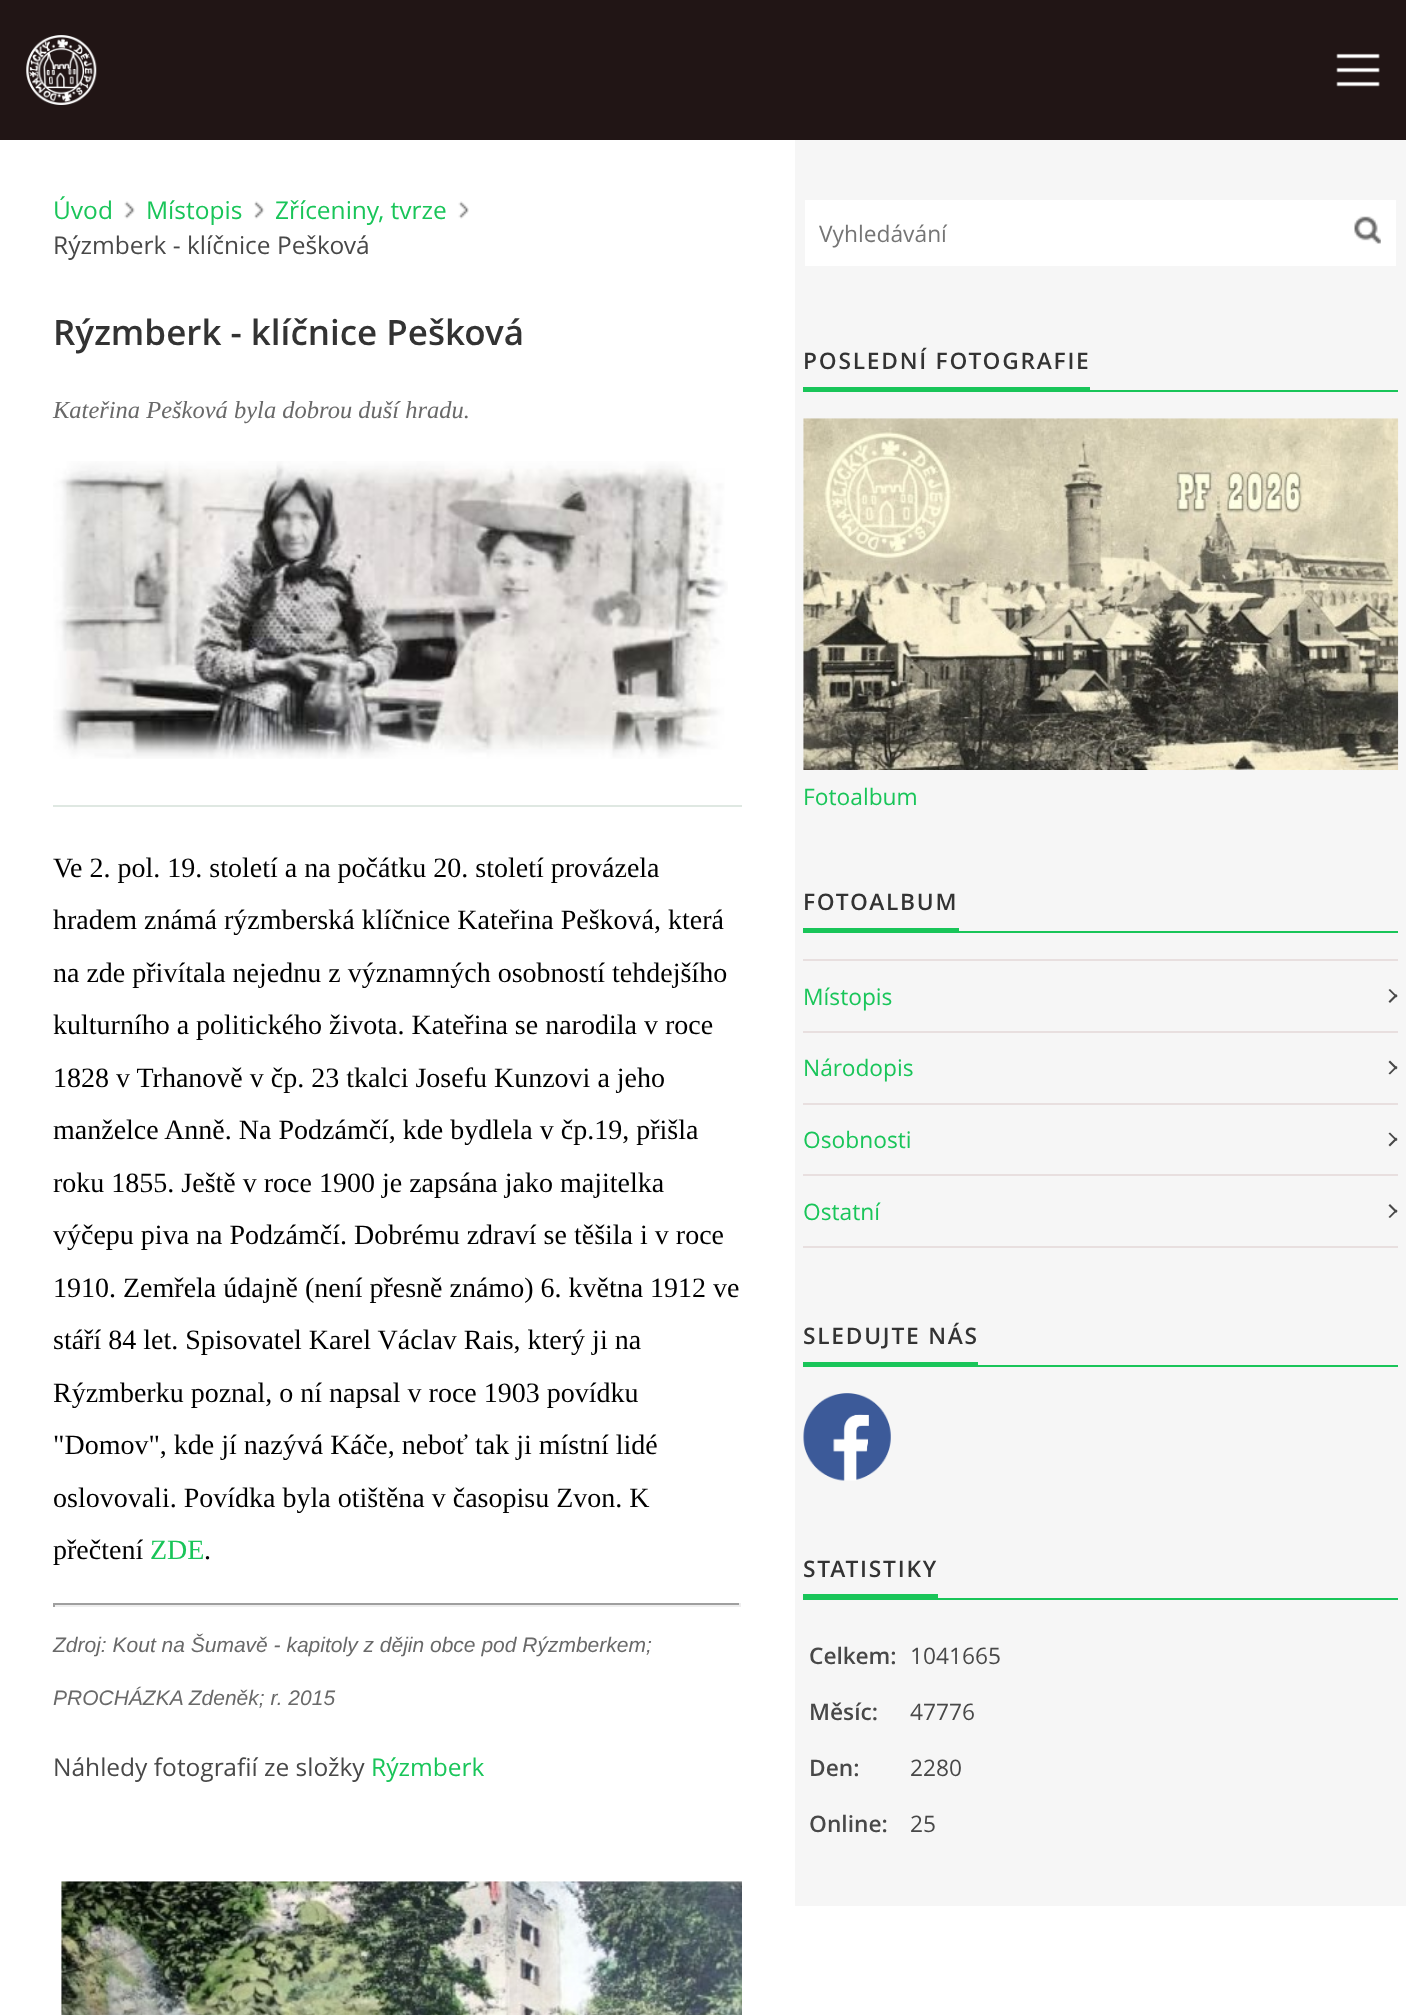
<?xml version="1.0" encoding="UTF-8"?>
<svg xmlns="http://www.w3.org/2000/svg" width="1406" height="2015">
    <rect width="100%" height="100%" fill="#FFFFFF"/>
    <rect x="0" y="0" width="1406" height="140" fill="#211515"/>
    <image x="26" y="35" width="71" height="70" href="img_01.png"/>
    <image x="1336" y="53" width="44" height="34" href="img_02.png"/>
    <image x="124" y="201" width="11" height="18" href="img_03.png"/>
    <text x="53" y="219" font-family="Open Sans" font-size="24.5" fill="#19C559">Úvod</text>
    <image x="254" y="201" width="11" height="18" href="img_04.png"/>
    <text x="146" y="219" font-family="Open Sans" font-size="24.5" fill="#19C559">Místopis</text>
    <image x="458" y="201" width="11" height="18" href="img_05.png"/>
    <text x="275" y="219" font-family="Open Sans" font-size="24.5" fill="#19C559">Zříceniny, tvrze</text>
    <text x="53" y="254" font-family="Open Sans" font-size="24.5" fill="#484848">Rýzmberk - klíčnice Pešková</text>
    <text x="53" y="345" font-family="Open Sans" font-size="35" font-weight="600" fill="#333333">Rýzmberk - klíčnice Pešková</text>
    <rect x="53" y="805" width="689" height="2" fill="#DFE8E2"/>
    <text x="53" y="418" font-family="Liberation Serif" font-size="24.5" font-style="italic" fill="#696969">Kateřina Pešková byla dobrou duší hradu.</text>
    <image x="53" y="461" width="675" height="298" href="img_06.png"/>
    <text font-family="Liberation Serif" font-size="28" fill="#000000">
        <tspan x="53" y="877">Ve 2. pol. 19. století a na počátku 20. století provázela</tspan>
        <tspan x="53" y="929">hradem známá rýzmberská klíčnice Kateřina Pešková, která</tspan>
        <tspan x="53" y="982">na zde přivítala nejednu z významných osobností tehdejšího</tspan>
        <tspan x="53" y="1034">kulturního a politického života. Kateřina se narodila v roce</tspan>
        <tspan x="53" y="1087">1828 v Trhanově v čp. 23 tkalci Josefu Kunzovi a jeho</tspan>
        <tspan x="53" y="1139">manželce Anně. Na Podzámčí, kde bydlela v čp.19, přišla</tspan>
        <tspan x="53" y="1192">roku 1855. Ještě v roce 1900 je zapsána jako majitelka</tspan>
        <tspan x="53" y="1244">výčepu piva na Podzámčí. Dobrému zdraví se těšila i v roce</tspan>
        <tspan x="53" y="1297">1910. Zemřela údajně (není přesně známo) 6. května 1912 ve</tspan>
        <tspan x="53" y="1349">stáří 84 let. Spisovatel Karel Václav Rais, který ji na</tspan>
        <tspan x="53" y="1402">Rýzmberku poznal, o ní napsal v roce 1903 povídku</tspan>
        <tspan x="53" y="1454">"Domov", kde jí nazývá Káče, neboť tak ji místní lidé</tspan>
        <tspan x="53" y="1507">oslovovali. Povídka byla otištěna v časopisu Zvon. K</tspan>
        <tspan x="53" y="1559">přečtení</tspan>
    </text>
    <text x="150" y="1559" font-family="Liberation Serif" font-size="28" fill="#19C559">ZDE</text>
    <text x="204" y="1559" font-family="Liberation Serif" font-size="28" fill="#000000">.</text>
    <rect x="53" y="1603" width="687" height="2" fill="#9F9F9F"/>
    <rect x="739" y="1603" width="2" height="4" fill="#EEEEEE"/>
    <rect x="53" y="1605" width="687" height="2" fill="#EEEEEE"/>
    <rect x="53" y="1603" width="2" height="4" fill="#9F9F9F"/>
    <text x="53" y="1652" font-family="Liberation Sans" font-size="21" font-style="italic" fill="#696969">Zdroj: Kout na Šumavě - kapitoly z dějin obce pod Rýzmberkem;</text>
    <text x="53" y="1705" font-family="Liberation Sans" font-size="21" font-style="italic" fill="#696969">PROCHÁZKA Zdeněk; r. 2015</text>
    <text x="53" y="1776" font-family="Open Sans" font-size="24.5" fill="#484848">Náhledy fotografií ze složky</text>
    <text x="371" y="1776" font-family="Open Sans" font-size="24.5" fill="#19C559">Rýzmberk</text>
    <image x="61" y="1881" width="681" height="134" href="img_07.png"/>
    <rect x="795" y="140" width="611" height="1766" fill="#F6F6F6"/>
    <rect x="805" y="200" width="591" height="66" fill="#FFFFFF"/>
    <text x="819" y="242" font-family="Open Sans" font-size="22.75" fill="#757575">Vyhledávání</text>
    <image x="1354" y="216" width="27" height="28" href="img_08.png"/>
    <text x="803" y="369" font-family="Open Sans" font-size="22.75" font-weight="600" letter-spacing="1.75" fill="#333333">POSLEDNÍ FOTOGRAFIE</text>
    <rect x="803" y="387" width="287" height="3" fill="#19C559"/>
    <rect x="803" y="390" width="595" height="2" fill="#19C559"/>
    <image x="803" y="418" width="596" height="352" href="img_09.png"/>
    <text x="803" y="805" font-family="Open Sans" font-size="22.75" fill="#19C559">Fotoalbum</text>
    <text x="803" y="910" font-family="Open Sans" font-size="22.75" font-weight="600" letter-spacing="1.75" fill="#333333">FOTOALBUM</text>
    <rect x="803" y="928" width="156" height="3" fill="#19C559"/>
    <rect x="803" y="931" width="595" height="2" fill="#19C559"/>
    <rect x="803" y="959" width="595" height="2" fill="#E8DFDF"/>
    <rect x="803" y="1031" width="595" height="2" fill="#E8DFDF"/>
    <text x="803" y="1005" font-family="Open Sans" font-size="22.75" fill="#19C559">Místopis</text>
    <path d="M 1390 989 L 1397.5 996.5 L 1396 997.5 L 1388.5 990 Z" fill="#484848"/>
    <path d="M 1388.5 1001.5 L 1396 994 L 1397.5 995.5 L 1390 1003 Z" fill="#484848"/>
    <rect x="803" y="1103" width="595" height="2" fill="#E8DFDF"/>
    <text x="803" y="1076" font-family="Open Sans" font-size="22.75" fill="#19C559">Národopis</text>
    <path d="M 1390 1060.5 L 1397.5 1068 L 1396 1069.5 L 1388.5 1062 Z" fill="#484848"/>
    <path d="M 1388.5 1073.5 L 1396 1066 L 1397.5 1067 L 1390 1074.5 Z" fill="#484848"/>
    <rect x="803" y="1174" width="595" height="2" fill="#E8DFDF"/>
    <text x="803" y="1148" font-family="Open Sans" font-size="22.75" fill="#19C559">Osobnosti</text>
    <path d="M 1390 1132.5 L 1397.5 1140 L 1396 1141 L 1388.5 1133.5 Z" fill="#484848"/>
    <path d="M 1388.5 1145 L 1396 1137.5 L 1397.5 1139 L 1390 1146.5 Z" fill="#484848"/>
    <rect x="803" y="1246" width="595" height="2" fill="#E8DFDF"/>
    <text x="803" y="1220" font-family="Open Sans" font-size="22.75" fill="#19C559">Ostatní</text>
    <path d="M 1390 1204 L 1397.5 1211.5 L 1396 1213 L 1388.5 1205.5 Z" fill="#484848"/>
    <path d="M 1388.5 1217 L 1396 1209.5 L 1397.5 1210.5 L 1390 1218 Z" fill="#484848"/>
    <text x="803" y="1344" font-family="Open Sans" font-size="22.75" font-weight="600" letter-spacing="1.75" fill="#333333">SLEDUJTE NÁS</text>
    <rect x="803" y="1362" width="175" height="3" fill="#19C559"/>
    <rect x="803" y="1365" width="595" height="2" fill="#19C559"/>
    <image x="803" y="1393" width="88" height="88" href="img_10.png"/>
    <text x="803" y="1577" font-family="Open Sans" font-size="22.75" font-weight="600" letter-spacing="1.75" fill="#333333">STATISTIKY</text>
    <rect x="803" y="1594" width="135" height="4" fill="#19C559"/>
    <rect x="803" y="1598" width="595" height="2" fill="#19C559"/>
    <text x="809" y="1664" font-family="Open Sans" font-size="22.75" font-weight="600" fill="#484848">Celkem:</text>
    <text x="910" y="1664" font-family="Open Sans" font-size="22.75" fill="#484848">1041665</text>
    <text x="809" y="1720" font-family="Open Sans" font-size="22.75" font-weight="600" fill="#484848">Měsíc:</text>
    <text x="910" y="1720" font-family="Open Sans" font-size="22.75" fill="#484848">47776</text>
    <text x="809" y="1776" font-family="Open Sans" font-size="22.75" font-weight="600" fill="#484848">Den:</text>
    <text x="910" y="1776" font-family="Open Sans" font-size="22.75" fill="#484848">2280</text>
    <text x="809" y="1832" font-family="Open Sans" font-size="22.75" font-weight="600" fill="#484848">Online:</text>
    <text x="910" y="1832" font-family="Open Sans" font-size="22.75" fill="#484848">25</text>
</svg>
